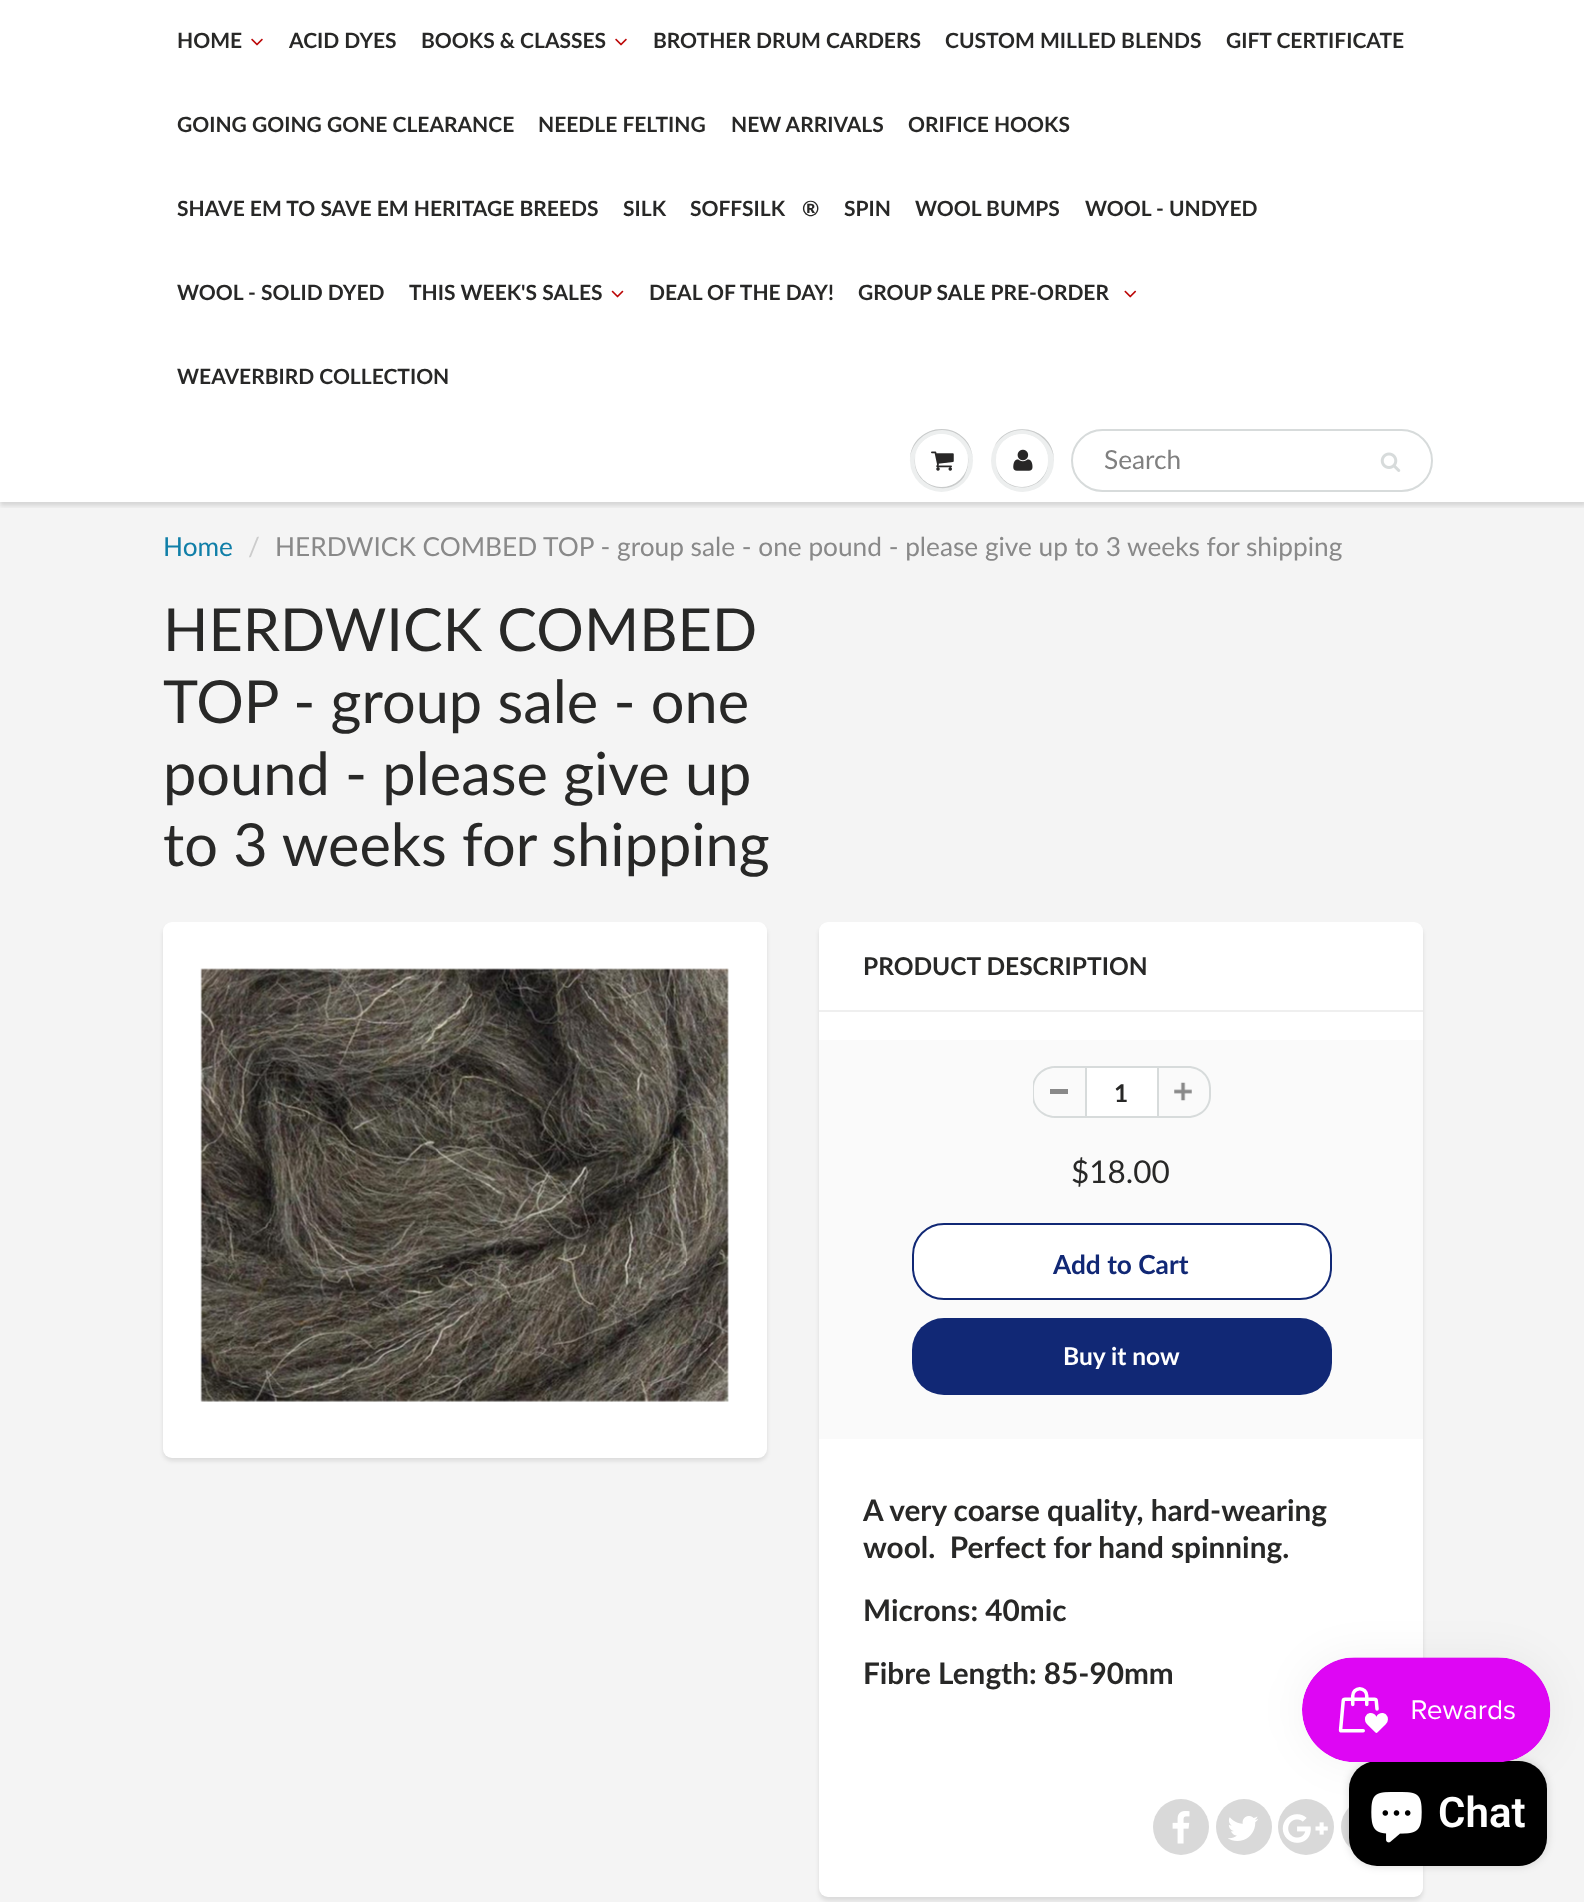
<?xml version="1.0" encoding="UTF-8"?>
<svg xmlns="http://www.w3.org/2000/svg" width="1584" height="1902">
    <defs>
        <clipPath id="clip1"><rect x="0" y="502" width="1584" height="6"/></clipPath>
        <filter id="blur1" x="-50%" y="-200%" width="200%" height="500%"><feGaussianBlur stdDeviation="2"/></filter>
        <clipPath id="clip2"><rect x="1033" y="1066" width="178" height="52"/></clipPath>
        <filter id="blur2" x="-50%" y="-200%" width="200%" height="500%"><feGaussianBlur stdDeviation="4.5"/></filter>
        <filter id="blur3" x="-50%" y="-200%" width="200%" height="500%"><feGaussianBlur stdDeviation="22"/></filter>
    </defs>
    <rect width="100%" height="100%" fill="#FFFFFF"/>
    <rect x="0" y="502" width="1584" height="1400" fill="#F4F4F4"/>
    <g clip-path="url(#clip1)">
        <rect x="0" y="-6" width="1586" height="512" fill="#0B191C" fill-opacity="0.12" filter="url(#blur1)"/>
    </g>
    <text x="177" y="48" font-family="Lato" font-size="21" font-weight="700" fill="#282827">HOME</text>
    <image x="251" y="38" width="12" height="8" href="img_01.png"/>
    <text x="289" y="48" font-family="Lato" font-size="21" font-weight="700" fill="#282827">ACID DYES</text>
    <text x="421" y="48" font-family="Lato" font-size="21" font-weight="700" fill="#282827">BOOKS &amp; CLASSES</text>
    <image x="615" y="38" width="12" height="8" href="img_01.png"/>
    <text x="653" y="48" font-family="Lato" font-size="21" font-weight="700" fill="#282827">BROTHER DRUM CARDERS</text>
    <text x="945" y="48" font-family="Lato" font-size="21" font-weight="700" fill="#282827">CUSTOM MILLED BLENDS</text>
    <text x="1226" y="48" font-family="Lato" font-size="21" font-weight="700" fill="#282827">GIFT CERTIFICATE</text>
    <text x="177" y="132" font-family="Lato" font-size="21" font-weight="700" fill="#282827">GOING GOING GONE CLEARANCE</text>
    <text x="538" y="132" font-family="Lato" font-size="21" font-weight="700" fill="#282827">NEEDLE FELTING</text>
    <text x="731" y="132" font-family="Lato" font-size="21" font-weight="700" fill="#282827">NEW ARRIVALS</text>
    <text x="908" y="132" font-family="Lato" font-size="21" font-weight="700" fill="#282827">ORIFICE HOOKS</text>
    <text x="177" y="216" font-family="Lato" font-size="21" font-weight="700" fill="#282827">SHAVE EM TO SAVE EM HERITAGE BREEDS</text>
    <text x="623" y="216" font-family="Lato" font-size="21" font-weight="700" fill="#282827">SILK</text>
    <text x="690" y="216" font-family="Lato" font-size="21" font-weight="700" fill="#282827">SOFFSILK</text>
    <text x="802" y="216" font-family="Lato" font-size="21" font-weight="700" fill="#282827">®</text>
    <text x="844" y="216" font-family="Lato" font-size="21" font-weight="700" fill="#282827">SPIN</text>
    <text x="915" y="216" font-family="Lato" font-size="21" font-weight="700" fill="#282827">WOOL BUMPS</text>
    <text x="1085" y="216" font-family="Lato" font-size="21" font-weight="700" fill="#282827">WOOL - UNDYED</text>
    <text x="177" y="300" font-family="Lato" font-size="21" font-weight="700" fill="#282827">WOOL - SOLID DYED</text>
    <text x="409" y="300" font-family="Lato" font-size="21" font-weight="700" fill="#282827">THIS WEEK'S SALES</text>
    <image x="611" y="290" width="13" height="8" href="img_02.png"/>
    <text x="649" y="300" font-family="Lato" font-size="21" font-weight="700" fill="#282827">DEAL OF THE DAY!</text>
    <text x="858" y="300" font-family="Lato" font-size="21" font-weight="700" fill="#282827">GROUP SALE PRE-ORDER</text>
    <image x="1124" y="290" width="13" height="8" href="img_03.png"/>
    <text x="177" y="384" font-family="Lato" font-size="21" font-weight="700" fill="#282827">WEAVERBIRD COLLECTION</text>
    <circle cx="941.5" cy="460.5" r="31.5" fill="#EDEFEF"/>
    <path d="M 942 430 C 959 430 973 445 973 461 C 973 455 971 448 968 443 C 950 417 909 430 910 461 C 910 445 924 430 942 430 Z" fill="#C9CBCB"/>
    <path d="M 915 457 C 911 485 948 500 964 477 C 967 471 969 464 968 457 C 968 464 967 470 963 475 C 948 498 913 484 915 457 Z" fill="#C9CBCB"/>
    <circle cx="941.5" cy="460.5" r="26.5" fill="#FFFFFF"/>
    <path d="M 942 436 C 956 436 968 448 968 461 C 968 456 967 450 963 446 C 949 424 914 435 915 461 C 915 448 927 436 942 436 Z" fill="#FFFFFF"/>
    <image x="931" y="451" width="23" height="20" href="img_04.png"/>
    <circle cx="1022.5" cy="460.5" r="31.5" fill="#EDEFEF"/>
    <path d="M 1022 430 C 1039 430 1054 445 1054 461 C 1055 427 1008 417 994 447 C 1000 437 1010 430 1022 430 Z M 996 465 C 1000 495 1044 495 1048 465 C 1043 493 1001 493 996 465 Z" fill="#C9CBCB"/>
    <rect x="996" y="434" width="52" height="53" rx="26" fill="#FFFFFF"/>
    <path d="M 1022 436 C 1036 436 1048 448 1048 462 C 1049 425 995 425 996 462 C 996 448 1008 436 1022 436 Z" fill="#FFFFFF"/>
    <image x="1013" y="449" width="20" height="22" href="img_05.png"/>
    <rect x="1072" y="430" width="360" height="61" rx="30.5" fill="none" stroke="#D7DBDB" stroke-width="2"/>
    <text x="1104" y="469" font-family="Lato" font-size="26.25" fill="#808080">Search</text>
    <image x="1380" y="452" width="21" height="20" href="img_06.png"/>
    <text x="163" y="556" font-family="Lato" font-size="26.25" fill="#107FA8">Home</text>
    <text x="248" y="556" font-family="Lato" font-size="26.25" fill="#CCCCCC">/</text>
    <text x="275" y="556" font-family="Lato" font-size="26.25" fill="#898989">HERDWICK COMBED TOP - group sale - one pound - please give up to 3 weeks for shipping</text>
    <text font-family="Lato" font-size="59.5" fill="#282827">
        <tspan x="163" y="651">HERDWICK COMBED</tspan>
        <tspan x="163" y="723">TOP - group sale - one</tspan>
        <tspan x="163" y="795">pound - please give up</tspan>
        <tspan x="163" y="866">to 3 weeks for shipping</tspan>
    </text>
    <rect x="163" y="926" width="604" height="535" rx="9" fill="#0B191C" fill-opacity="0.1" filter="url(#blur1)"/>
    <rect x="163" y="922" width="604" height="536" rx="9" fill="#FFFFFF"/>
    <image x="200" y="968" width="529" height="434" href="img_07.png"/>
    <rect x="819" y="926" width="604" height="975" rx="9" fill="#0B191C" fill-opacity="0.1" filter="url(#blur1)"/>
    <rect x="819" y="922" width="604" height="975" rx="9" fill="#FFFFFF"/>
    <rect x="819" y="1010" width="604" height="2" fill="#EFEFEF"/>
    <text x="863" y="975" font-family="Lato" font-size="24.5" font-weight="700" fill="#282827">PRODUCT DESCRIPTION</text>
    <rect x="819" y="1040" width="604" height="399" fill="#FAFAFA"/>
    <rect x="1050" y="1089" width="18" height="5" fill="#898989"/>
    <g clip-path="url(#clip2)">
        <path d="M 1055 1066 H 1085 V 1118 H 1055 C 1043 1118 1032 1108 1032 1096 V 1088 C 1032 1076 1043 1066 1055 1066 Z M 1055 1068 H 1085 V 1116 H 1055 C 1044 1116 1034 1107 1034 1096 V 1088 C 1034 1077 1044 1068 1055 1068 Z" fill="#D7DBDB" fill-rule="evenodd"/>
    </g>
    <rect x="1086" y="1067" width="72" height="50" fill="#FFFFFF" stroke="#D7DBDB" stroke-width="2"/>
    <text x="1114" y="1102" font-family="Lato" font-size="24.5" font-weight="700" fill="#282827">1</text>
    <image x="1174" y="1082" width="18" height="19" href="img_08.png"/>
    <path d="M 1158 1066 H 1188 C 1201 1066 1211 1076 1211 1088 V 1096 C 1211 1108 1201 1118 1188 1118 H 1158 Z M 1158 1068 H 1188 C 1200 1068 1209 1077 1209 1088 V 1096 C 1209 1107 1200 1116 1188 1116 H 1158 Z" fill="#D7DBDB" fill-rule="evenodd"/>
    <text x="1071" y="1183" font-family="Lato" font-size="31.5" fill="#282827">$18.00</text>
    <rect x="913" y="1224" width="418" height="75" rx="31" fill="#FFFFFF" stroke="#112875" stroke-width="2"/>
    <text x="1053" y="1274" font-family="Lato" font-size="26.25" font-weight="700" fill="#112875">Add to Cart</text>
    <rect x="912" y="1318" width="420" height="77" rx="32" fill="#112875"/>
    <text x="1063" y="1365" font-family="Lato" font-size="24.5" font-weight="700" fill="#FFFFFF">Buy it now</text>
    <text font-family="Lato" font-size="29.75" font-weight="700" fill="#282827" xml:space="preserve"><tspan x="863" y="1521">A very coarse quality, hard-wearing</tspan><tspan x="863" y="1558">wool.  Perfect for hand spinning.</tspan></text>
    <text x="863" y="1621" font-family="Lato" font-size="29.75" font-weight="700" fill="#282827">Microns: 40mic</text>
    <text x="863" y="1684" font-family="Lato" font-size="29.75" font-weight="700" fill="#282827">Fibre Length: 85-90mm</text>
    <circle cx="1181" cy="1827" r="28" fill="#D9D9D9"/>
    <image x="1172" y="1811" width="18" height="33" href="img_09.png"/>
    <circle cx="1244" cy="1827" r="28" fill="#D9D9D9"/>
    <image x="1228" y="1816" width="30" height="25" href="img_10.png"/>
    <circle cx="1306" cy="1827" r="28" fill="#D9D9D9"/>
    <image x="1282" y="1814" width="46" height="29" href="img_11.png"/>
    <circle cx="1369" cy="1827" r="28" fill="#D9D9D9"/>
    <rect x="1349" y="1761" width="198" height="105" rx="28" fill="#000000" fill-opacity="0.15" filter="url(#blur2)"/>
    <rect x="1349" y="1761" width="198" height="105" rx="28" fill="#000000"/>
    <image x="1371" y="1792" width="51" height="51" href="img_13.png"/>
    <rect x="1302" y="1657" width="249" height="105" rx="52.5" fill="#000000" fill-opacity="0.05" filter="url(#blur3)"/>
    <image x="1302" y="1657" width="249" height="105" href="img_12.png"/>
    <text x="1438" y="1827" font-family="Roboto" font-size="42" font-weight="600" fill="#FFFFFF">Chat</text>
</svg>
